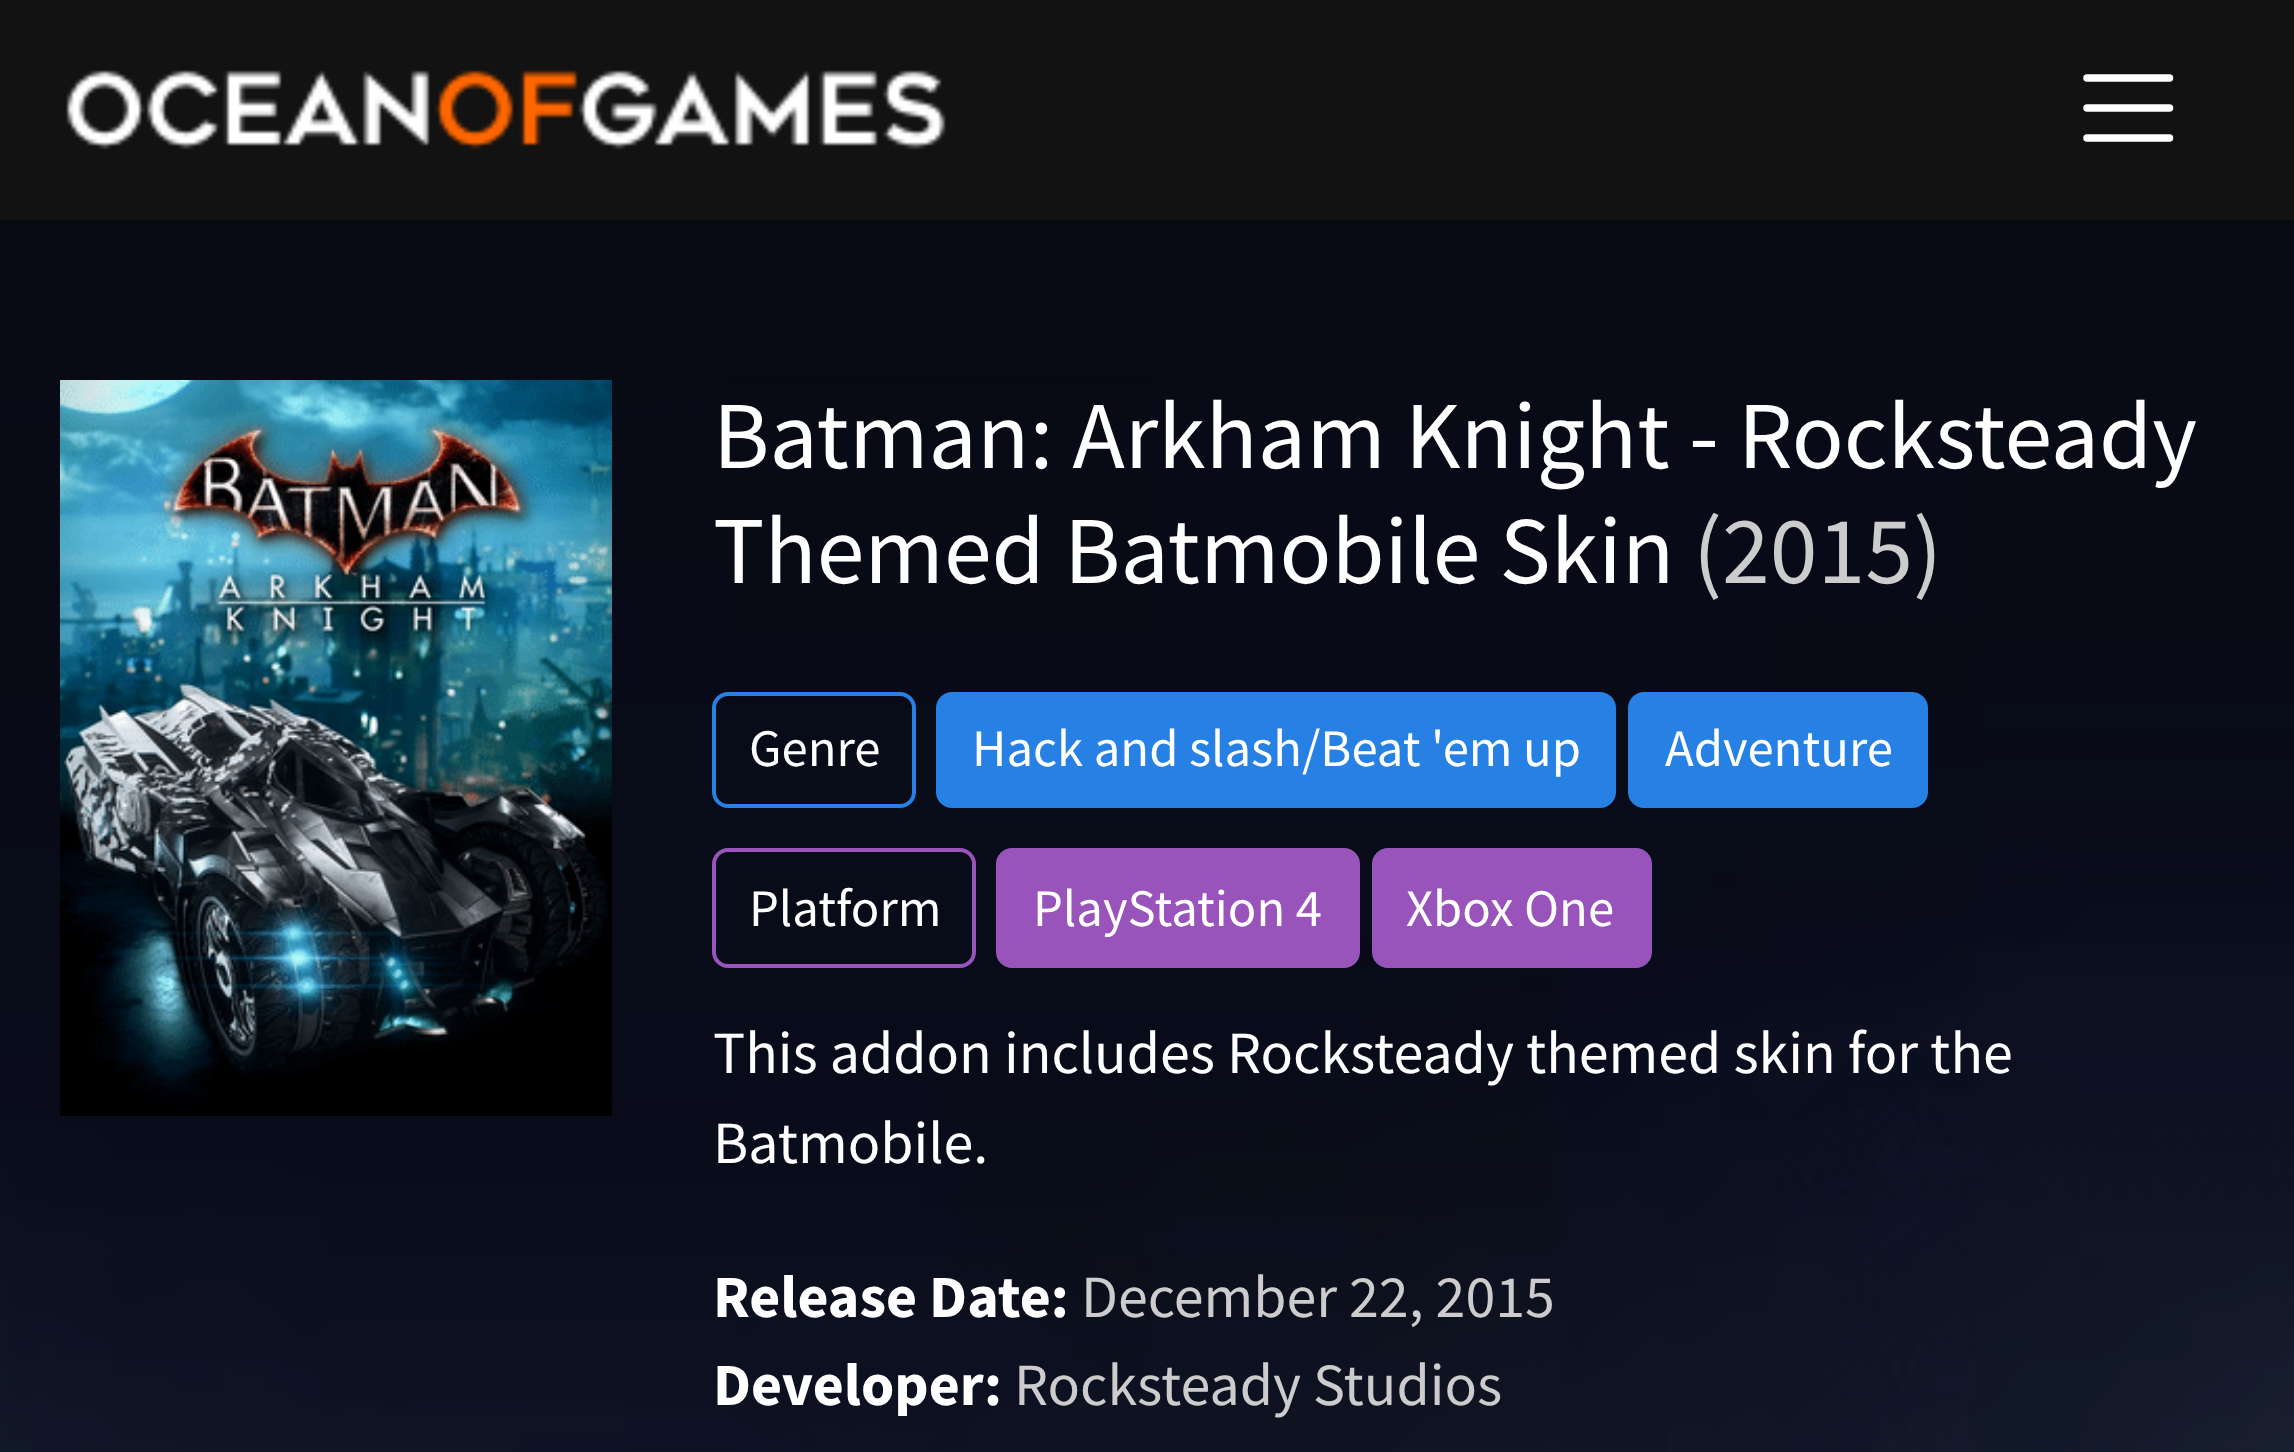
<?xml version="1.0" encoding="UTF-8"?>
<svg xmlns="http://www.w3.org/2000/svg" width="2294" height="1452">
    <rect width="100%" height="100%" fill="#121212"/>
    <image x="66" y="70" width="880" height="80" href="img_01.png"/>
    <path d="M 2087 78 H 2169.5 M 2087 108 H 2169.5 M 2087 138 H 2169.5" fill="none" stroke="#FFFFFF" stroke-width="7.5" stroke-linecap="round"/>
    <image x="0" y="220" width="2294" height="1232" href="img_02.png"/>
    <image x="60" y="380" width="552" height="736" href="img_03.png"/>
    <text font-family="Source Sans Pro" font-size="96" fill="#FFFFFF">
        <tspan x="713" y="468">Batman: Arkham Knight - Rocksteady</tspan>
        <tspan x="713" y="583">Themed Batmobile Skin</tspan>
    </text>
    <text x="1693" y="583" font-family="Source Sans Pro" font-size="96" fill="#CCCCCC">(2015)</text>
    <rect x="714" y="694" width="200" height="112" rx="14" fill="none" stroke="#2780E3" stroke-width="4"/>
    <text x="749" y="766" font-family="Source Sans Pro" font-size="52.75" fill="#FFFFFF">Genre</text>
    <rect x="938" y="694" width="676" height="112" rx="14" fill="#2780E3" stroke="#2780E3" stroke-width="4"/>
    <text x="972" y="766" font-family="Source Sans Pro" font-size="52.75" fill="#FFFFFF">Hack and slash/Beat 'em up</text>
    <rect x="1630" y="694" width="296" height="112" rx="14" fill="#2780E3" stroke="#2780E3" stroke-width="4"/>
    <text x="1665" y="766" font-family="Source Sans Pro" font-size="52.75" fill="#FFFFFF">Adventure</text>
    <rect x="714" y="850" width="260" height="116" rx="14" fill="none" stroke="#9954BB" stroke-width="4"/>
    <text x="749" y="926" font-family="Source Sans Pro" font-size="52.75" fill="#FFFFFF">Platform</text>
    <rect x="998" y="850" width="360" height="116" rx="14" fill="#9954BB" stroke="#9954BB" stroke-width="4"/>
    <text x="1033" y="926" font-family="Source Sans Pro" font-size="52.75" fill="#FFFFFF">PlayStation 4</text>
    <rect x="1374" y="850" width="276" height="116" rx="14" fill="#9954BB" stroke="#9954BB" stroke-width="4"/>
    <text x="1406" y="926" font-family="Source Sans Pro" font-size="52.75" fill="#FFFFFF">Xbox One</text>
    <text font-family="Source Sans Pro" font-size="60" fill="#FFFFFF">
        <tspan x="713" y="1073">This addon includes Rocksteady themed skin for the</tspan>
        <tspan x="713" y="1163">Batmobile.</tspan>
    </text>
    <text x="713" y="1317" font-family="Source Sans Pro" font-size="60" font-weight="700" fill="#FFFFFF">Release Date:</text>
    <text x="1081" y="1317" font-family="Source Sans Pro" font-size="60" fill="#CCCCCC">December 22, 2015</text>
    <text x="713" y="1405" font-family="Source Sans Pro" font-size="60" font-weight="700" fill="#FFFFFF">Developer:</text>
    <text x="1014" y="1405" font-family="Source Sans Pro" font-size="60" fill="#CCCCCC">Rocksteady Studios</text>
</svg>
